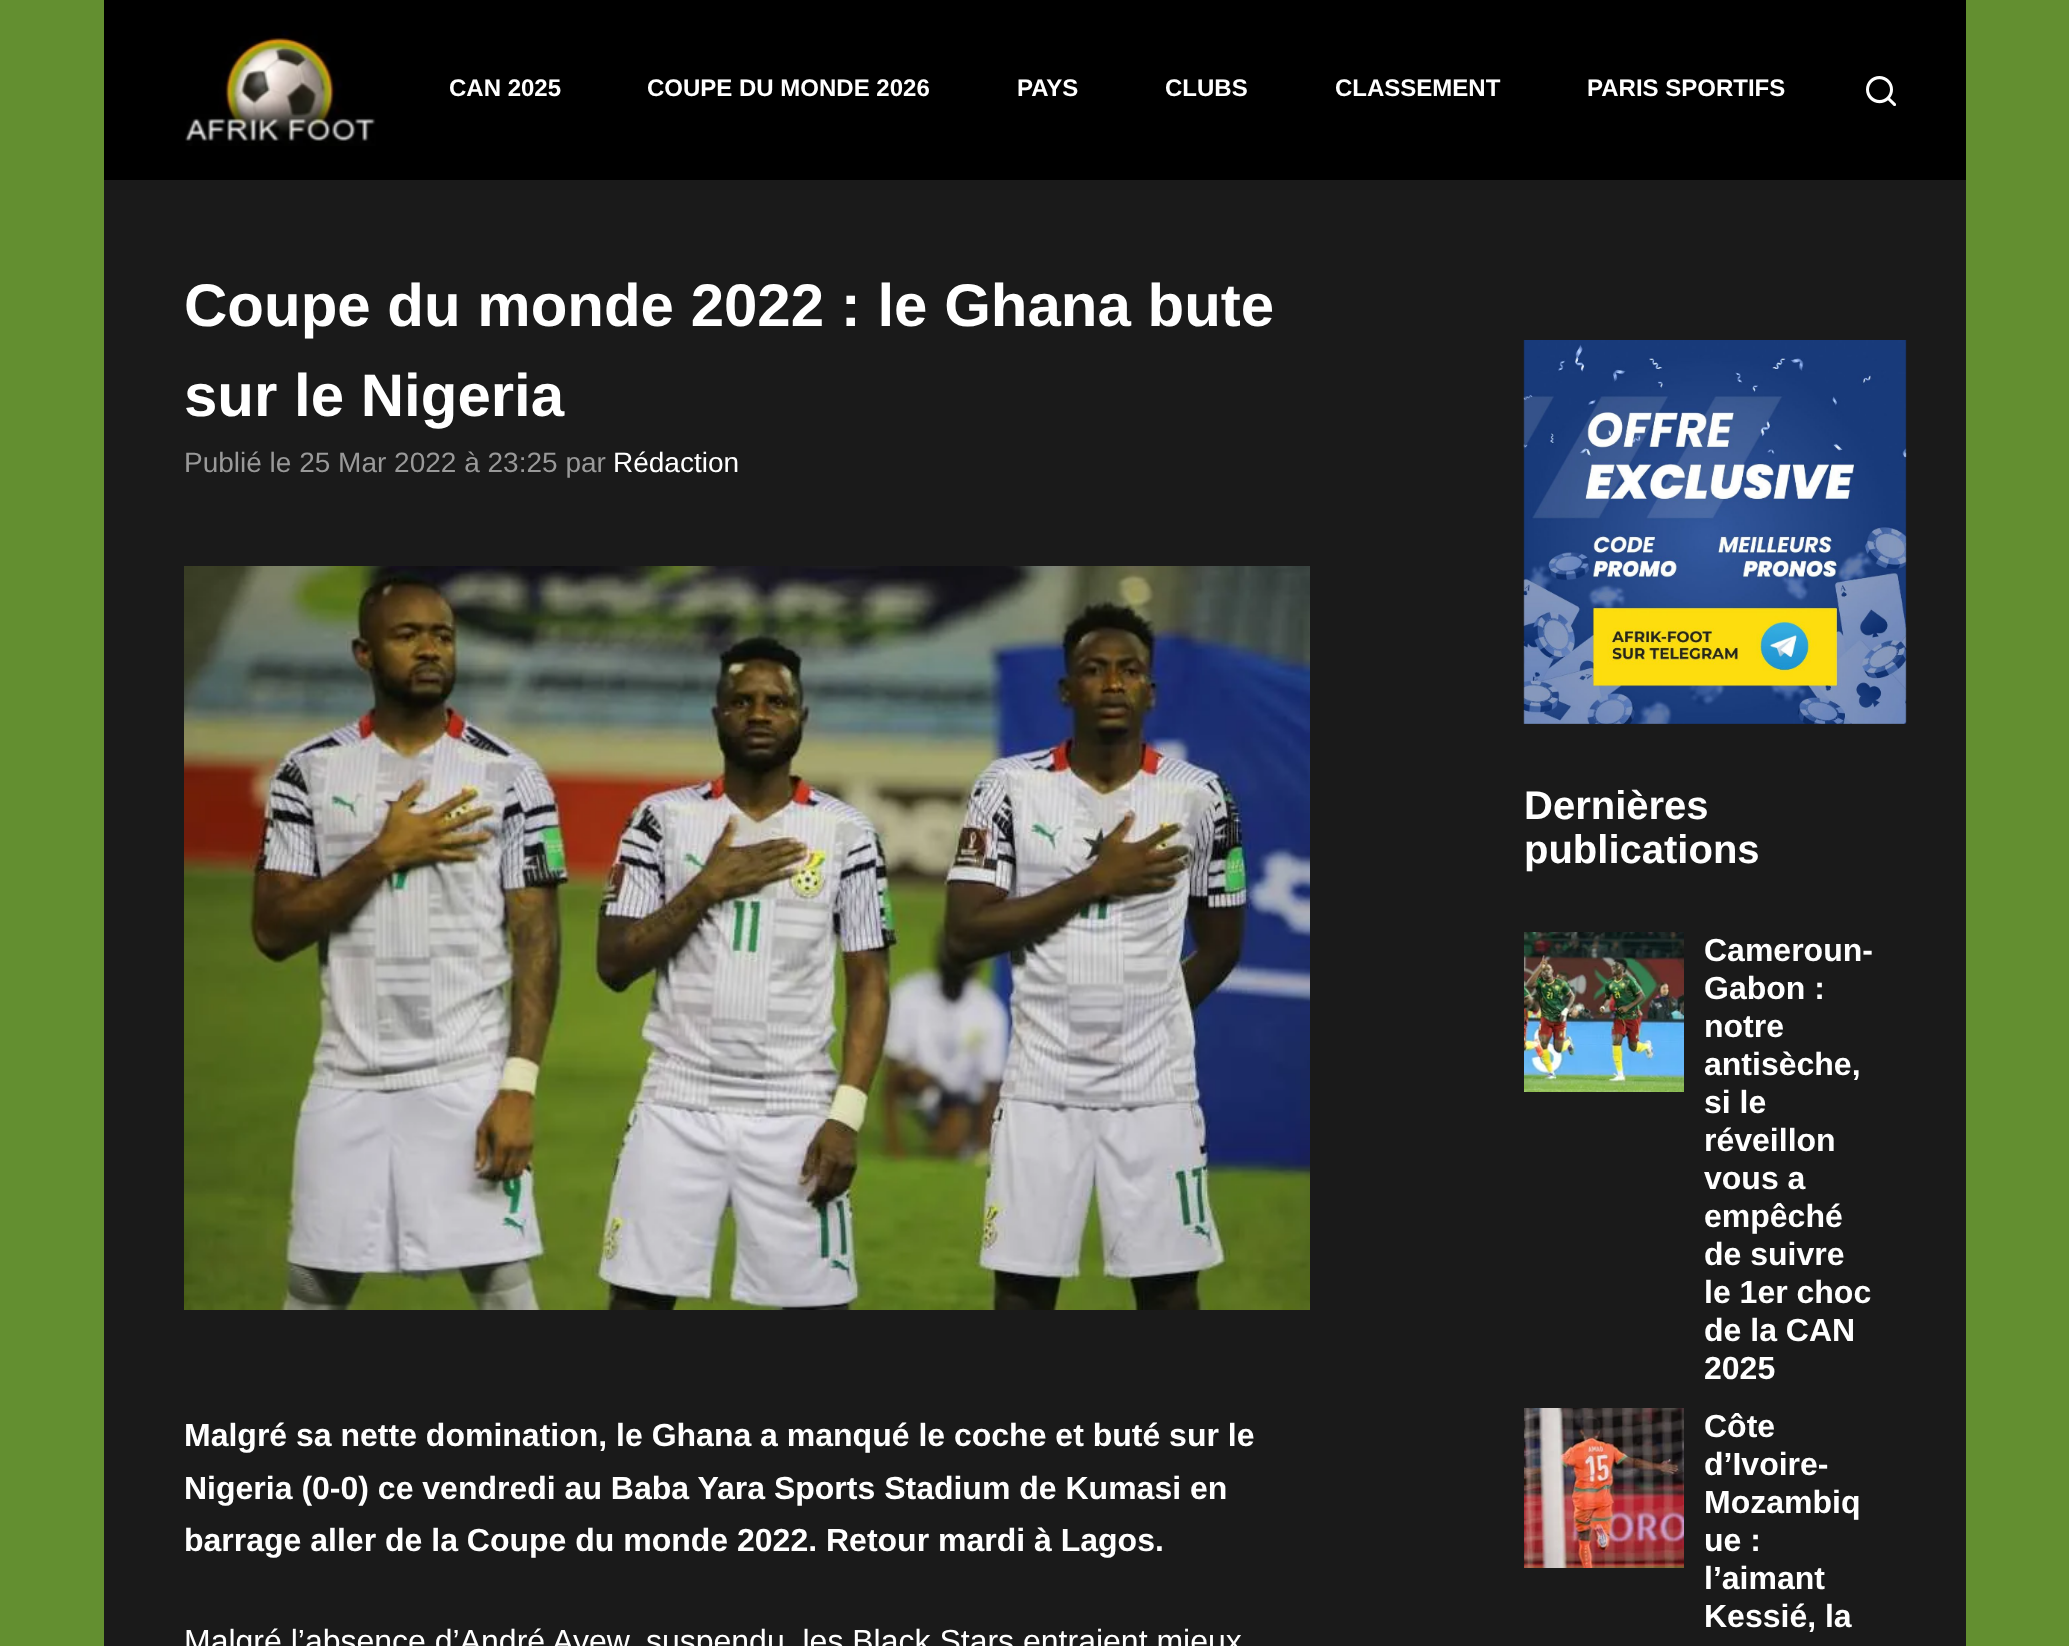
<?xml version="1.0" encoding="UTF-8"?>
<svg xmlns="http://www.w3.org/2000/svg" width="2069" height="1646">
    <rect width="100%" height="100%" fill="#638F30"/>
    <rect x="104" y="0" width="1862" height="180" fill="#000000"/>
    <image x="185" y="30" width="191" height="116" href="img_01.png"/>
    <text x="449" y="96" font-family="Liberation Sans" font-size="24" font-weight="700" fill="#FFFFFF">CAN 2025</text>
    <text x="647" y="96" font-family="Liberation Sans" font-size="24" font-weight="700" fill="#FFFFFF">COUPE DU MONDE 2026</text>
    <text x="1017" y="96" font-family="Liberation Sans" font-size="24" font-weight="700" fill="#FFFFFF">PAYS</text>
    <text x="1165" y="96" font-family="Liberation Sans" font-size="24" font-weight="700" fill="#FFFFFF">CLUBS</text>
    <text x="1335" y="96" font-family="Liberation Sans" font-size="24" font-weight="700" fill="#FFFFFF">CLASSEMENT</text>
    <text x="1587" y="96" font-family="Liberation Sans" font-size="24" font-weight="700" fill="#FFFFFF">PARIS SPORTIFS</text>
    <image x="1866" y="76" width="30" height="30" href="img_02.png"/>
    <rect x="104" y="180" width="1862" height="1466" fill="#1A1A1A"/>
    <text font-family="Liberation Sans" font-size="60" font-weight="700" fill="#FFFFFF">
        <tspan x="184" y="326">Coupe du monde 2022 : le Ghana bute</tspan>
        <tspan x="184" y="416">sur le Nigeria</tspan>
    </text>
    <text x="184" y="472" font-family="Liberation Sans" font-size="28" fill="#999999">Publié le 25 Mar 2022 à 23:25 par</text>
    <text x="613" y="472" font-family="Liberation Sans" font-size="28" fill="#FFFFFF">Rédaction</text>
    <image x="184" y="566" width="1126" height="744" href="img_03.png"/>
    <text font-family="Liberation Sans" font-size="32" font-weight="700" fill="#FFFFFF">
        <tspan x="184" y="1446">Malgré sa nette domination, le Ghana a manqué le coche et buté sur le</tspan>
        <tspan x="184" y="1499">Nigeria (0-0) ce vendredi au Baba Yara Sports Stadium de Kumasi en</tspan>
        <tspan x="184" y="1551">barrage aller de la Coupe du monde 2022. Retour mardi à Lagos.</tspan>
    </text>
    <text x="184" y="1652" font-family="Liberation Sans" font-size="32" fill="#FFFFFF">Malgré l’absence d’André Ayew, suspendu, les Black Stars entraient mieux</text>
    <image x="1523" y="340" width="384" height="384" href="img_04.png"/>
    <text font-family="Liberation Sans" font-size="40" font-weight="700" fill="#FFFFFF">
        <tspan x="1524" y="819">Dernières</tspan>
        <tspan x="1524" y="863">publications</tspan>
    </text>
    <image x="1524" y="932" width="160" height="160" href="img_05.png"/>
    <text font-family="Liberation Sans" font-size="32" font-weight="700" fill="#FFFFFF">
        <tspan x="1704" y="961">Cameroun-</tspan>
        <tspan x="1704" y="999">Gabon :</tspan>
        <tspan x="1704" y="1037">notre</tspan>
        <tspan x="1704" y="1075">antisèche,</tspan>
        <tspan x="1704" y="1113">si le</tspan>
        <tspan x="1704" y="1151">réveillon</tspan>
        <tspan x="1704" y="1189">vous a</tspan>
        <tspan x="1704" y="1227">empêché</tspan>
        <tspan x="1704" y="1265">de suivre</tspan>
        <tspan x="1704" y="1303">le 1er choc</tspan>
        <tspan x="1704" y="1341">de la CAN</tspan>
        <tspan x="1704" y="1379">2025</tspan>
    </text>
    <image x="1524" y="1408" width="160" height="160" href="img_06.png"/>
    <text font-family="Liberation Sans" font-size="32" font-weight="700" fill="#FFFFFF">
        <tspan x="1704" y="1437">Côte</tspan>
        <tspan x="1704" y="1475">d’Ivoire-</tspan>
        <tspan x="1704" y="1513">Mozambiq</tspan>
        <tspan x="1704" y="1551">ue :</tspan>
        <tspan x="1704" y="1589">l’aimant</tspan>
        <tspan x="1704" y="1627">Kessié, la</tspan>
    </text>
</svg>
